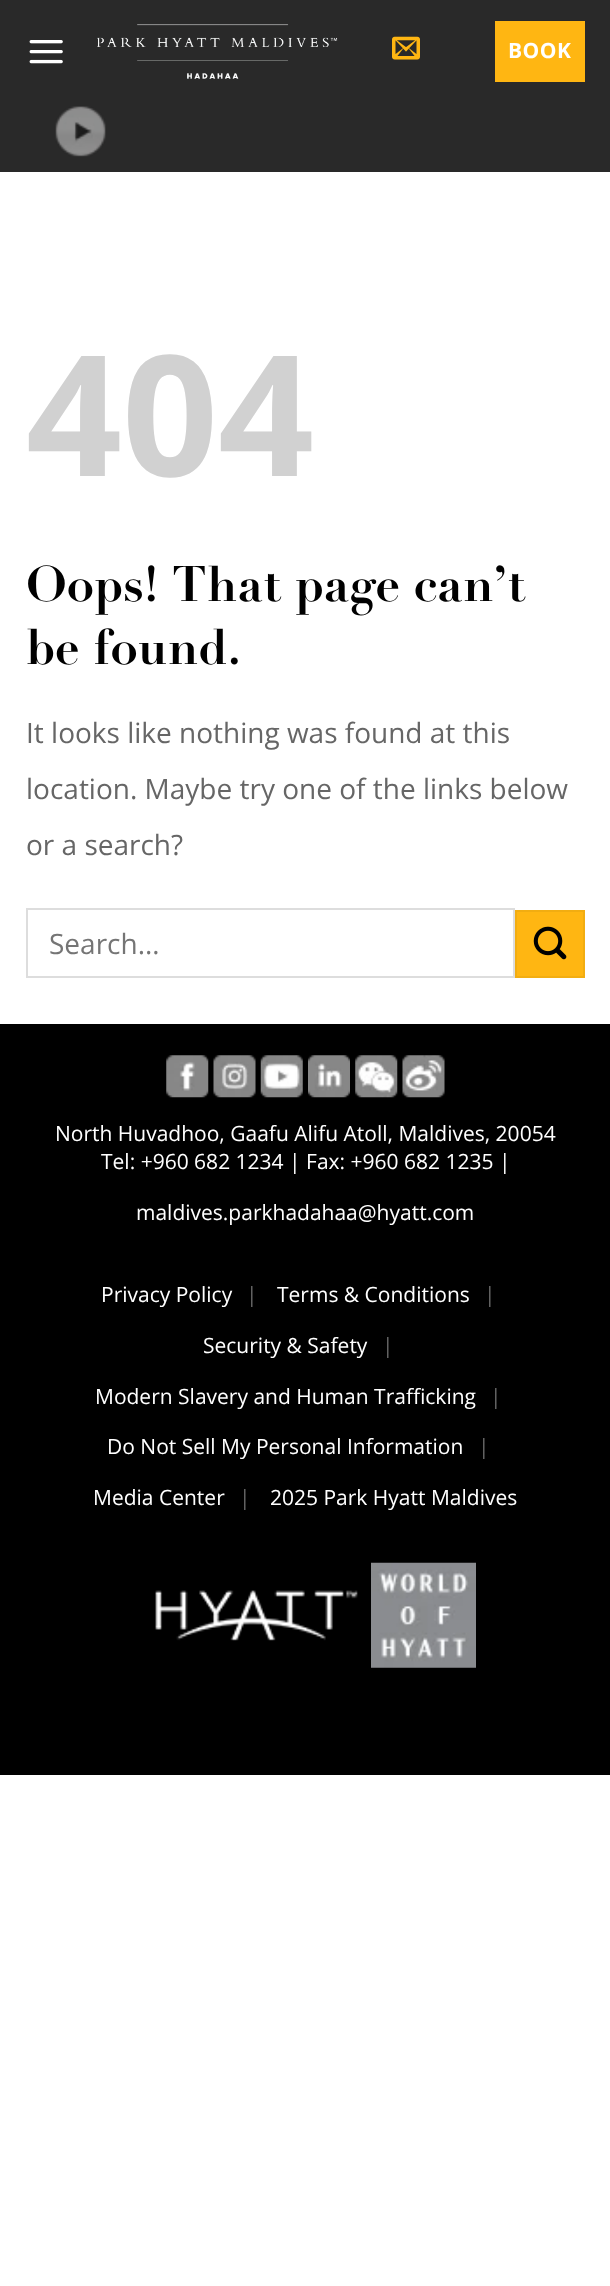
<?xml version="1.0" encoding="UTF-8"?>
<svg xmlns="http://www.w3.org/2000/svg" width="610" height="2286">
    <rect width="100%" height="100%" fill="#FFFFFF"/>
    <rect x="0" y="0" width="610" height="172" fill="#292929"/>
    <image x="29" y="40" width="34" height="24" href="img_01.png"/>
    <image x="97" y="24" width="241" height="55" href="img_02.png"/>
    <image x="392" y="36" width="28" height="24" href="img_03.png"/>
    <rect x="495" y="21" width="90" height="61" fill="#FFB612"/>
    <text x="508" y="58" font-family="Open Sans" font-size="21" font-weight="700" letter-spacing="0.5" fill="#FFFFFF">BOOK</text>
    <image x="55" y="106" width="51" height="51" href="img_04.png"/>
    <text x="26" y="476" font-family="Open Sans" font-size="168" font-weight="700" fill="#D1D1D1">404</text>
    <text font-family="Didot" font-size="49" font-weight="700" fill="#000000">
        <tspan x="26" y="601">Oops! That page can’t</tspan>
        <tspan x="26" y="664">be found.</tspan>
    </text>
    <text x="26" y="743" font-family="Open Sans" font-size="28" fill="#666666">It looks like nothing was found at this</text>
    <text x="26" y="799" font-family="Open Sans" font-size="28" fill="#666666">location. Maybe try one of the links below</text>
    <text x="26" y="855" font-family="Open Sans" font-size="28" fill="#666666">or a search?</text>
    <rect x="27" y="909" width="487" height="68" fill="none" stroke="#DDDDDD" stroke-width="2"/>
    <text x="49" y="954" font-family="Open Sans" font-size="28" fill="#757575">Search…</text>
    <rect x="516" y="911" width="68" height="66" fill="#FFB612" stroke="#F2AD11" stroke-width="2"/>
    <image x="533" y="926" width="34" height="34" href="img_05.png"/>
    <rect x="0" y="1024" width="610" height="751" fill="#000000"/>
    <image x="166" y="1055" width="43" height="43" href="img_06.png"/>
    <image x="213" y="1055" width="43" height="43" href="img_07.png"/>
    <image x="260" y="1055" width="43" height="43" href="img_08.png"/>
    <image x="308" y="1055" width="42" height="43" href="img_09.png"/>
    <image x="355" y="1055" width="43" height="43" href="img_10.png"/>
    <image x="402" y="1055" width="43" height="43" href="img_11.png"/>
    <text x="55" y="1141" font-family="Open Sans" font-size="21" fill="#FFFFFF">North Huvadhoo, Gaafu Alifu Atoll, Maldives, 20054</text>
    <text x="101" y="1169" font-family="Open Sans" font-size="21" fill="#FFFFFF">Tel: +960 682 1234 | Fax: +960 682 1235 |</text>
    <text x="136" y="1220" font-family="Open Sans" font-size="21" fill="#FFFFFF">maldives.parkhadahaa@hyatt.com</text>
    <text x="101" y="1302" font-family="Open Sans" font-size="21" fill="#FFFFFF">Privacy Policy</text>
    <text x="246" y="1302" font-family="Open Sans" font-size="21" fill="#666666">|</text>
    <text x="277" y="1302" font-family="Open Sans" font-size="21" fill="#FFFFFF">Terms &amp; Conditions</text>
    <text x="484" y="1302" font-family="Open Sans" font-size="21" fill="#666666">|</text>
    <text x="203" y="1353" font-family="Open Sans" font-size="21" fill="#FFFFFF">Security &amp; Safety</text>
    <text x="382" y="1353" font-family="Open Sans" font-size="21" fill="#666666">|</text>
    <text x="95" y="1404" font-family="Open Sans" font-size="21" fill="#FFFFFF">Modern Slavery and Human Trafficking</text>
    <text x="490" y="1404" font-family="Open Sans" font-size="21" fill="#666666">|</text>
    <text x="107" y="1454" font-family="Open Sans" font-size="21" fill="#FFFFFF">Do Not Sell My Personal Information</text>
    <text x="478" y="1454" font-family="Open Sans" font-size="21" fill="#666666">|</text>
    <text x="93" y="1505" font-family="Open Sans" font-size="21" fill="#FFFFFF">Media Center</text>
    <text x="239" y="1505" font-family="Open Sans" font-size="21" fill="#666666">|</text>
    <text x="270" y="1505" font-family="Open Sans" font-size="21" fill="#FFFFFF">2025 Park Hyatt Maldives</text>
    <image x="155" y="1590" width="203" height="51" href="img_12.png"/>
    <image x="371" y="1562" width="105" height="106" href="img_13.png"/>
</svg>
